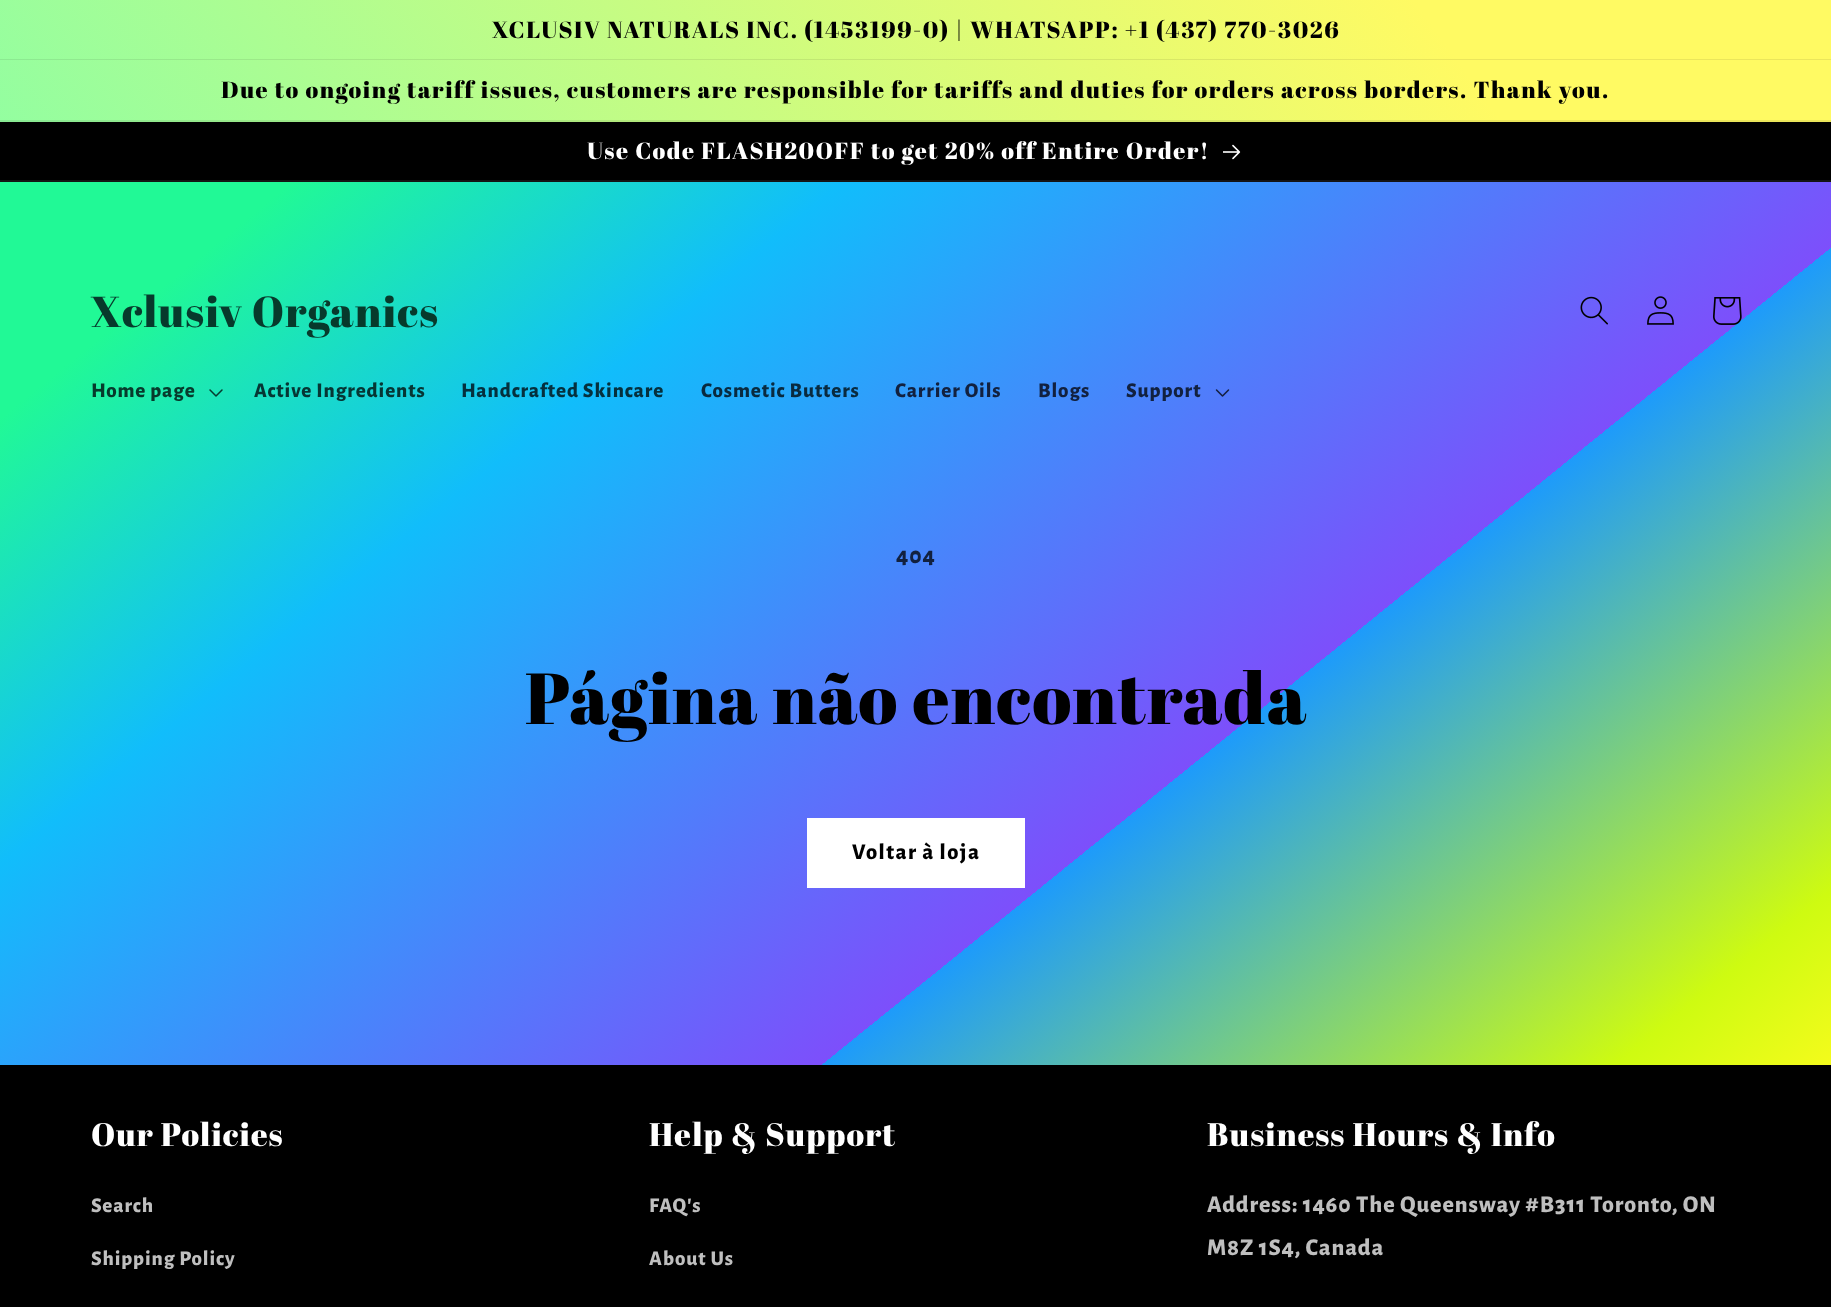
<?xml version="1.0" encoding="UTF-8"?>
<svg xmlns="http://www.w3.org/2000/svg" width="1831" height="1307">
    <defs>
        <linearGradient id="g1" gradientUnits="userSpaceOnUse" x1="1598" y1="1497" x2="233" y2="-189"><stop offset="0.08" stop-color="#F8FB1D"/><stop offset="0.15" stop-color="#CEFB11"/><stop offset="0.38" stop-color="#1D9BFB"/><stop offset="0.38" stop-color="#287DFB"/><stop offset="0.38" stop-color="#3262FB"/><stop offset="0.38" stop-color="#3C49FB"/><stop offset="0.38" stop-color="#5846FB"/><stop offset="0.38" stop-color="#7D4FFB"/><stop offset="0.69" stop-color="#11BDFB"/><stop offset="0.85" stop-color="#21F996"/></linearGradient>
        <linearGradient id="g2" gradientUnits="userSpaceOnUse" x1="5.4" y1="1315" x2="1826" y2="-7.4"><stop offset="0.14" stop-color="#72FFB3"/><stop offset="0.85" stop-color="#FFFA63"/></linearGradient>
        <linearGradient id="g3" gradientUnits="userSpaceOnUse" x1="5.4" y1="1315" x2="1826" y2="-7.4"><stop offset="0.14" stop-color="#69EBA5"/><stop offset="0.85" stop-color="#EBE65B"/></linearGradient>
    </defs>
    <rect width="100%" height="100%" fill="#FFFFFF"/>
    <rect x="0" y="182" width="1831" height="883" fill="url(#g1)"/>
    <rect x="0" y="0" width="1831" height="59" fill="url(#g2)"/>
    <rect x="0" y="59" width="1831" height="1" fill="url(#g3)"/>
    <text x="492" y="38" font-family="Abril Fatface" font-size="23.4" letter-spacing="1.5" fill="#000000">XCLUSIV NATURALS INC. (1453199-0) | WHATSAPP: +1 (437) 770-3026</text>
    <rect x="0" y="60" width="1831" height="60" fill="url(#g2)"/>
    <rect x="0" y="120" width="1831" height="2" fill="url(#g3)"/>
    <text x="221" y="98" font-family="Abril Fatface" font-size="23.4" letter-spacing="1.5" fill="#000000">Due to ongoing tariff issues, customers are responsible for tariffs and duties for orders across borders. Thank you.</text>
    <rect x="0" y="122" width="1831" height="58" fill="#000000"/>
    <rect x="0" y="180" width="1831" height="2" fill="#141414"/>
    <text x="587" y="159" font-family="Abril Fatface" font-size="23.4" letter-spacing="1.5" fill="#FFFFFF">Use Code FLASH20OFF to get 20% off Entire Order!</text>
    <image x="1223" y="144" width="18" height="16" href="img_01.png"/>
    <text x="91" y="327" font-family="Abril Fatface" font-size="43.25" letter-spacing="1.1" fill="#073A2C">Xclusiv Organics</text>
    <image x="1580" y="296" width="28" height="29" href="img_02.png"/>
    <image x="1647" y="296" width="27" height="29" href="img_03.png"/>
    <image x="1713" y="297" width="29" height="28" href="img_04.png"/>
    <text x="91" y="397" font-family="Alegreya Sans" font-size="21" font-weight="800" letter-spacing="0.9" fill="#073A2C">Home page</text>
    <image x="209" y="389" width="14" height="8" href="img_05.png"/>
    <text x="254" y="397" font-family="Alegreya Sans" font-size="21" font-weight="800" letter-spacing="0.9" fill="#063634">Active Ingredients</text>
    <text x="461" y="397" font-family="Alegreya Sans" font-size="21" font-weight="800" letter-spacing="0.9" fill="#05303D">Handcrafted Skincare</text>
    <text x="701" y="397" font-family="Alegreya Sans" font-size="21" font-weight="800" letter-spacing="0.9" fill="#092A3F">Cosmetic Butters</text>
    <text x="895" y="397" font-family="Alegreya Sans" font-size="21" font-weight="800" letter-spacing="0.9" fill="#12213F">Carrier Oils</text>
    <text x="1038" y="397" font-family="Alegreya Sans" font-size="21" font-weight="800" letter-spacing="0.9" fill="#12213F">Blogs</text>
    <text x="1126" y="397" font-family="Alegreya Sans" font-size="21" font-weight="800" letter-spacing="0.9" fill="#12213F">Support</text>
    <image x="1215" y="389" width="15" height="8" href="img_06.png"/>
    <text x="896" y="563" font-family="Alegreya Sans" font-size="24" font-weight="800" letter-spacing="0.9" fill="#12213F">404</text>
    <text x="525" y="724" font-family="Abril Fatface" font-size="72" letter-spacing="1.1" fill="#000000">Página não encontrada</text>
    <rect x="807" y="818" width="218" height="70" fill="#FFFFFF"/>
    <text x="852" y="859" font-family="Alegreya Sans" font-size="22.5" font-weight="800" letter-spacing="1.5" fill="#000000">Voltar à loja</text>
    <rect x="0" y="1065" width="1831" height="242" fill="#000000"/>
    <text x="91" y="1146" font-family="Abril Fatface" font-size="32.4" letter-spacing="1.1" fill="#FFFFFF">Our Policies</text>
    <text x="91" y="1212" font-family="Alegreya Sans" font-size="21" font-weight="800" letter-spacing="0.9" fill="#BFBFBF">Search</text>
    <text x="91" y="1265" font-family="Alegreya Sans" font-size="21" font-weight="800" letter-spacing="0.9" fill="#BFBFBF">Shipping Policy</text>
    <text x="649" y="1146" font-family="Abril Fatface" font-size="32.4" letter-spacing="1.1" fill="#FFFFFF">Help &amp; Support</text>
    <text x="649" y="1212" font-family="Alegreya Sans" font-size="21" font-weight="800" letter-spacing="0.9" fill="#BFBFBF">FAQ's</text>
    <text x="649" y="1265" font-family="Alegreya Sans" font-size="21" font-weight="800" letter-spacing="0.9" fill="#BFBFBF">About Us</text>
    <text x="1207" y="1146" font-family="Abril Fatface" font-size="32.4" letter-spacing="1.1" fill="#FFFFFF">Business Hours &amp; Info</text>
    <text font-family="Alegreya Sans" font-size="24" font-weight="800" letter-spacing="0.9" fill="#BFBFBF">
        <tspan x="1207" y="1212">Address: 1460 The Queensway #B311 Toronto, ON</tspan>
        <tspan x="1207" y="1255">M8Z 1S4, Canada</tspan>
    </text>
</svg>
